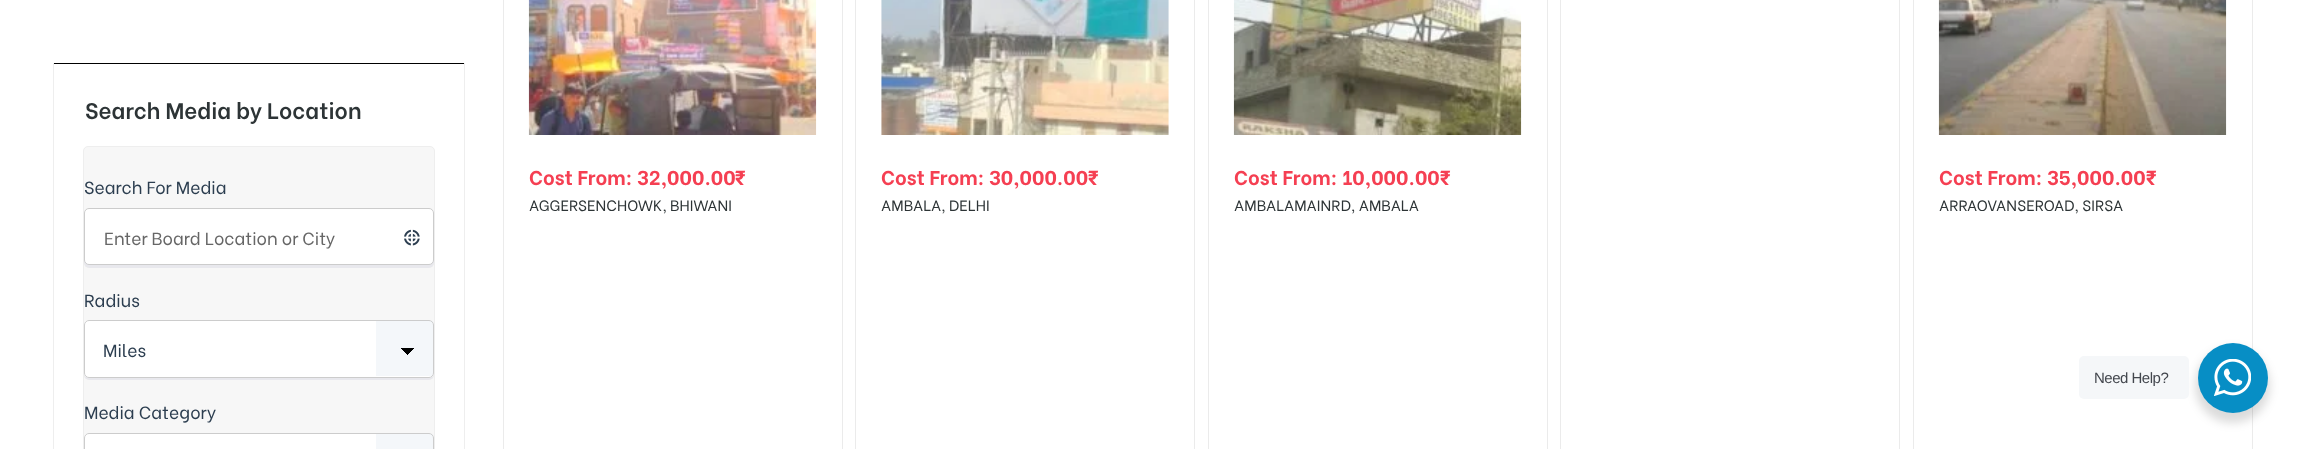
<?xml version="1.0" encoding="UTF-8"?>
<svg xmlns="http://www.w3.org/2000/svg" width="2304" height="449">
    <defs>
        <filter id="blur1" x="-50%" y="-200%" width="200%" height="500%"><feGaussianBlur stdDeviation="0.5"/></filter>
        <linearGradient id="g1" gradientUnits="userSpaceOnUse" x1="407" y1="348" x2="414" y2="355"><stop offset="0.5" stop-color="#000000"/><stop offset="0.5" stop-color="#F4F7FA"/></linearGradient>
        <linearGradient id="g2" gradientUnits="userSpaceOnUse" x1="400" y1="355" x2="408" y2="348"><stop offset="0.5" stop-color="#F4F7FA"/><stop offset="0.5" stop-color="#000000"/></linearGradient>
        <filter id="blur2" x="-50%" y="-200%" width="200%" height="500%"><feGaussianBlur stdDeviation="5"/></filter>
    </defs>
    <rect width="100%" height="100%" fill="#FFFFFF"/>
    <rect x="53" y="63" width="412" height="1" fill="#000000"/>
    <rect x="464" y="63" width="1" height="386" fill="#EEEEEE"/>
    <rect x="53" y="63" width="1" height="386" fill="#EEEEEE"/>
    <text x="85" y="119" font-family="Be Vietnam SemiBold" font-size="22.5" font-weight="600" fill="#2D3436">Search Media by Location</text>
    <rect x="83.5" y="146.5" width="351" height="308" rx="4.5" fill="#F7F7F7" stroke="#EEEEEE"/>
    <text x="84" y="194" font-family="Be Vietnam" font-size="17.5" fill="#2C3E50">Search For Media</text>
    <rect x="84" y="210" width="350" height="58" rx="5" fill="#1C1F3F" fill-opacity="0.06" filter="url(#blur1)"/>
    <rect x="84.5" y="208.5" width="349" height="56" rx="4.5" fill="#FFFFFF" stroke="#CCCCCC"/>
    <text x="104" y="245" font-family="Be Vietnam" font-size="17.5" fill="#666666">Enter Board Location or City</text>
    <image x="404" y="229" width="16" height="17" href="img_01.png"/>
    <text x="84" y="307" font-family="Be Vietnam" font-size="17.5" fill="#2C3E50">Radius</text>
    <rect x="84" y="323" width="350" height="57" rx="5" fill="#1C1F3F" fill-opacity="0.06" filter="url(#blur1)"/>
    <rect x="84" y="320" width="350" height="58" rx="5" fill="#FFFFFF"/>
    <rect x="376" y="321" width="57" height="55" fill="#F4F7FA"/>
    <rect x="408" y="348" width="6" height="7" fill="url(#g1)"/>
    <rect x="400" y="348" width="8" height="7" fill="url(#g2)"/>
    <rect x="84.5" y="320.5" width="349" height="57" rx="4.5" fill="none" stroke="#CCCCCC"/>
    <text x="103" y="357" font-family="Be Vietnam" font-size="17.5" fill="#2C3E50">Miles</text>
    <text x="84" y="419" font-family="Be Vietnam" font-size="17.5" fill="#2C3E50">Media Category</text>
    <rect x="84" y="433" width="350" height="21" rx="5" fill="#FFFFFF"/>
    <rect x="376" y="434" width="57" height="15" fill="#F4F7FA"/>
    <rect x="84.5" y="433.5" width="349" height="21" rx="4.5" fill="none" stroke="#CCCCCC"/>
    <rect x="503.5" y="-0.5" width="339" height="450" fill="none" stroke="#EBEBEB"/>
    <image x="528" y="0" width="289" height="135" href="img_02.png"/>
    <text x="529" y="185" font-family="Be Vietnam" font-size="20" font-weight="700" fill="#F53F52">Cost From: 32,000.00</text>
    <text x="735" y="185" font-family="Roboto" font-size="20" font-weight="700" fill="#F53F52">₹</text>
    <text x="529" y="211" font-family="Be Vietnam" font-size="15" fill="#2D3436">AGGERSENCHOWK, BHIWANI</text>
    <rect x="855.5" y="-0.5" width="339" height="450" fill="none" stroke="#EBEBEB"/>
    <image x="881" y="0" width="288" height="135" href="img_03.png"/>
    <text x="881" y="185" font-family="Be Vietnam" font-size="20" font-weight="700" fill="#F53F52">Cost From: 30,000.00</text>
    <text x="1088" y="185" font-family="Roboto" font-size="20" font-weight="700" fill="#F53F52">₹</text>
    <text x="881" y="211" font-family="Be Vietnam" font-size="15" fill="#2D3436">AMBALA, DELHI</text>
    <rect x="1208.5" y="-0.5" width="339" height="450" fill="none" stroke="#EBEBEB"/>
    <image x="1233" y="0" width="289" height="135" href="img_04.png"/>
    <text x="1234" y="185" font-family="Be Vietnam" font-size="20" font-weight="700" fill="#F53F52">Cost From: 10,000.00</text>
    <text x="1440" y="185" font-family="Roboto" font-size="20" font-weight="700" fill="#F53F52">₹</text>
    <text x="1234" y="211" font-family="Be Vietnam" font-size="15" fill="#2D3436">AMBALAMAINRD, AMBALA</text>
    <rect x="1560.5" y="-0.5" width="339" height="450" fill="none" stroke="#EBEBEB"/>
    <rect x="1913.5" y="-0.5" width="339" height="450" fill="none" stroke="#EBEBEB"/>
    <image x="1938" y="0" width="289" height="135" href="img_05.png"/>
    <text x="1939" y="185" font-family="Be Vietnam" font-size="20" font-weight="700" fill="#F53F52">Cost From: 35,000.00</text>
    <text x="2146" y="185" font-family="Roboto" font-size="20" font-weight="700" fill="#F53F52">₹</text>
    <text x="1939" y="211" font-family="Be Vietnam" font-size="15" fill="#2D3436">ARRAOVANSEROAD, SIRSA</text>
    <rect x="2195" y="348" width="75" height="75" rx="37.5" fill="#000000" fill-opacity="0.14" filter="url(#blur2)"/>
    <rect x="2079" y="356" width="110" height="43" rx="5" fill="#F5F7F9"/>
    <text x="2094" y="383" font-family="Liberation Sans" font-size="15" letter-spacing="-0.5" fill="#43474E">Need Help?</text>
    <circle cx="2233" cy="378" r="35" fill="#078EC5"/>
    <image x="2214" y="359" width="37" height="37" href="img_06.png"/>
</svg>
